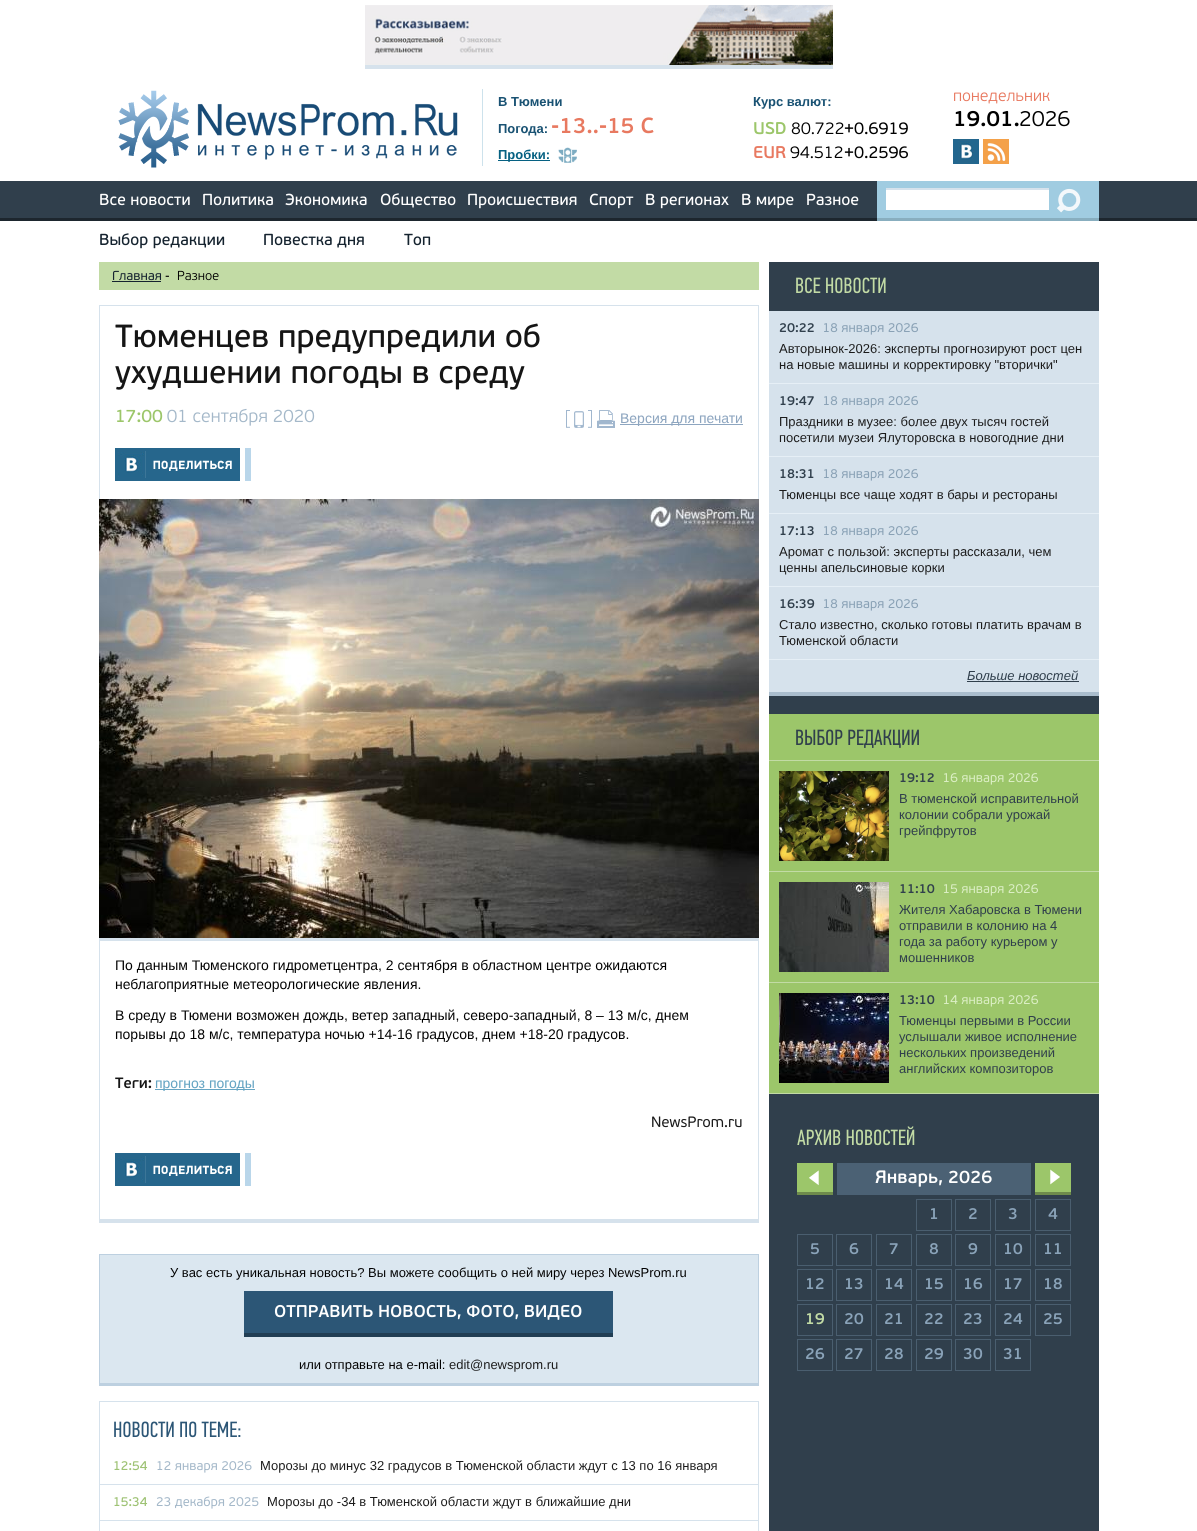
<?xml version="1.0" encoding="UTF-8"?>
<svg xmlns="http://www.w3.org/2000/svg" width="1197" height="1531">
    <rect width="100%" height="100%" fill="#FFFFFF"/>
    <image x="365" y="5" width="468" height="60" href="img_01.png"/>
    <rect x="365" y="65" width="468" height="4" fill="#D6E2EC"/>
    <rect x="482" y="89" width="1" height="77" fill="#CDE2EC"/>
    <image x="118" y="90" width="340" height="78" href="img_02.png"/>
    <text x="498" y="106" font-family="Liberation Sans" font-size="13" font-weight="700" fill="#195273">В Тюмени</text>
    <text x="498" y="133" font-family="Liberation Sans" font-size="13" font-weight="700" fill="#195273">Погода:</text>
    <image x="552" y="117" width="102" height="17" href="img_03.png"/>
    <rect x="498" y="160" width="52" height="1" fill="#066182"/>
    <text x="498" y="159" font-family="Liberation Sans" font-size="13" font-weight="700" fill="#066182">Пробки:</text>
    <image x="558" y="147" width="19" height="16" href="img_04.png"/>
    <text x="753" y="106" font-family="Liberation Sans" font-size="13" font-weight="700" fill="#195273">Курс валют:</text>
    <image x="754" y="121" width="32" height="14" href="img_05.png"/>
    <image x="791" y="122" width="53" height="13" href="img_06.png"/>
    <image x="844" y="122" width="64" height="13" href="img_07.png"/>
    <image x="754" y="146" width="32" height="13" href="img_08.png"/>
    <image x="790" y="146" width="53" height="13" href="img_09.png"/>
    <image x="844" y="146" width="64" height="13" href="img_10.png"/>
    <image x="954" y="92" width="96" height="12" href="img_11.png"/>
    <image x="955" y="110" width="64" height="17" href="img_12.png"/>
    <image x="1020" y="110" width="50" height="17" href="img_13.png"/>
    <image x="953" y="139" width="26" height="25" href="img_14.png"/>
    <image x="983" y="139" width="26" height="25" href="img_15.png"/>
    <image x="0" y="181" width="1197" height="40" href="img_16.png"/>
    <image x="100" y="193" width="90" height="13" href="img_17.png"/>
    <image x="203" y="193" width="70" height="13" href="img_18.png"/>
    <image x="285" y="193" width="82" height="13" href="img_19.png"/>
    <image x="380" y="193" width="76" height="15" href="img_20.png"/>
    <image x="468" y="193" width="109" height="16" href="img_21.png"/>
    <image x="589" y="193" width="45" height="16" href="img_22.png"/>
    <image x="646" y="193" width="83" height="16" href="img_23.png"/>
    <image x="742" y="193" width="52" height="16" href="img_24.png"/>
    <image x="807" y="193" width="52" height="13" href="img_25.png"/>
    <image x="877" y="181" width="222" height="40" href="img_26.png"/>
    <rect x="886" y="190" width="163" height="20" fill="#FFFFFF"/>
    <rect x="886" y="188" width="163" height="2" fill="#D6E2EC"/>
    <image x="1057" y="188" width="24" height="25" href="img_27.png"/>
    <image x="100" y="233" width="125" height="16" href="img_28.png"/>
    <image x="264" y="233" width="100" height="15" href="img_29.png"/>
    <image x="404" y="233" width="27" height="13" href="img_30.png"/>
    <rect x="99" y="262" width="660" height="28" fill="#C2DBA5"/>
    <image x="112" y="270" width="50" height="11" href="img_31.png"/>
    <image x="165" y="275" width="4" height="2" href="img_32.png"/>
    <rect x="112" y="281" width="49" height="1" fill="#15232F"/>
    <image x="177" y="270" width="42" height="11" href="img_33.png"/>
    <rect x="99" y="305" width="660" height="1" fill="#D6E2EC"/>
    <rect x="758" y="305" width="1" height="918" fill="#D6E2EC"/>
    <rect x="99" y="1219" width="660" height="4" fill="#D6E2EC"/>
    <rect x="99" y="305" width="1" height="918" fill="#D6E2EC"/>
    <image x="115" y="323" width="425" height="31" href="img_34.png"/>
    <image x="115" y="365" width="410" height="25" href="img_35.png"/>
    <image x="117" y="409" width="46" height="14" href="img_36.png"/>
    <image x="167" y="408" width="148" height="18" href="img_37.png"/>
    <image x="566" y="410" width="26" height="18" href="img_38.png"/>
    <image x="597" y="410" width="18" height="18" href="img_39.png"/>
    <rect x="620" y="424" width="123" height="1" fill="#8EA6C0"/>
    <text x="620" y="423" font-family="Liberation Sans" font-size="14" fill="#8EA6C0">Версия для печати</text>
    <image x="115" y="448" width="125" height="33" href="img_40.png"/>
    <rect x="245" y="448" width="6" height="33" fill="#B9D6EA"/>
    <rect x="99" y="938" width="660" height="3" fill="#D6E2EC"/>
    <image x="99" y="499" width="660" height="439" href="img_41.png"/>
    <text font-family="Liberation Sans" font-size="14" fill="#000000">
        <tspan x="115" y="970">По данным Тюменского гидрометцентра, 2 сентября в областном центре ожидаются</tspan>
        <tspan x="115" y="989">неблагоприятные метеорологические явления.</tspan>
    </text>
    <text font-family="Liberation Sans" font-size="14" fill="#000000">
        <tspan x="115" y="1020">В среду в Тюмени возможен дождь, ветер западный, северо-западный, 8 – 13 м/с, днем</tspan>
        <tspan x="115" y="1039">порывы до 18 м/с, температура ночью +14-16 градусов, днем +18-20 градусов.</tspan>
    </text>
    <image x="115" y="1077" width="37" height="12" href="img_42.png"/>
    <rect x="155" y="1089" width="100" height="1" fill="#66A5C3"/>
    <text x="155" y="1088" font-family="Liberation Sans" font-size="14" fill="#66A5C3">прогноз погоды</text>
    <image x="652" y="1116" width="90" height="12" href="img_43.png"/>
    <image x="115" y="1153" width="125" height="33" href="img_40.png"/>
    <rect x="245" y="1153" width="6" height="33" fill="#B9D6EA"/>
    <rect x="100" y="1255" width="658" height="128" fill="#DBE7F0"/>
    <rect x="99" y="1254" width="660" height="1" fill="#BDD0E0"/>
    <rect x="758" y="1254" width="1" height="132" fill="#BDD0E0"/>
    <rect x="99" y="1383" width="660" height="3" fill="#BDD0E0"/>
    <rect x="99" y="1254" width="1" height="132" fill="#BDD0E0"/>
    <text x="170" y="1277" font-family="Liberation Sans" font-size="13" fill="#000000">У вас есть уникальная новость? Вы можете сообщить о ней миру через NewsProm.ru</text>
    <rect x="244" y="1291" width="369" height="42" fill="#2C5676"/>
    <rect x="244" y="1333" width="369" height="4" fill="#213E54"/>
    <image x="274" y="1304" width="308" height="16" href="img_44.png"/>
    <text x="299" y="1369" font-family="Liberation Sans" font-size="13" fill="#000000">или отправьте на e-mail:</text>
    <text x="449" y="1369" font-family="Liberation Sans" font-size="13" fill="#1A1A1A">edit@newsprom.ru</text>
    <rect x="758" y="1401" width="1" height="130" fill="#D6E2EC"/>
    <rect x="99" y="1401" width="1" height="130" fill="#D6E2EC"/>
    <rect x="100" y="1401" width="658" height="1" fill="#D6E2EC"/>
    <image x="114" y="1421" width="127" height="17" href="img_45.png"/>
    <image x="114" y="1461" width="34" height="10" href="img_46.png"/>
    <image x="157" y="1461" width="95" height="12" href="img_47.png"/>
    <text x="260" y="1470" font-family="Liberation Sans" font-size="13" fill="#1A1A1A">Морозы до минус 32 градусов в Тюменской области ждут с 13 по 16 января</text>
    <rect x="100" y="1484" width="658" height="1" fill="#D6E2EC"/>
    <image x="114" y="1497" width="34" height="10" href="img_48.png"/>
    <image x="156" y="1496" width="103" height="13" href="img_49.png"/>
    <text x="267" y="1506" font-family="Liberation Sans" font-size="13" fill="#1A1A1A">Морозы до -34 в Тюменской области ждут в ближайшие дни</text>
    <rect x="100" y="1520" width="658" height="1" fill="#D6E2EC"/>
    <rect x="769" y="262" width="330" height="1269" fill="#303F4C"/>
    <image x="796" y="277" width="90" height="17" href="img_50.png"/>
    <rect x="769" y="311" width="330" height="348" fill="#D6E2EC"/>
    <rect x="769" y="383" width="330" height="1" fill="#E6EFF6"/>
    <image x="779" y="323" width="35" height="10" href="img_51.png"/>
    <image x="824" y="323" width="94" height="12" href="img_52.png"/>
    <text font-family="Liberation Sans" font-size="13" fill="#1A1A1A">
        <tspan x="779" y="353">Авторынок-2026: эксперты прогнозируют рост цен</tspan>
        <tspan x="779" y="369">на новые машины и корректировку "вторички"</tspan>
    </text>
    <rect x="769" y="456" width="330" height="1" fill="#E6EFF6"/>
    <image x="780" y="396" width="34" height="10" href="img_53.png"/>
    <image x="824" y="396" width="94" height="12" href="img_52.png"/>
    <text font-family="Liberation Sans" font-size="13" fill="#1A1A1A">
        <tspan x="779" y="426">Праздники в музее: более двух тысяч гостей</tspan>
        <tspan x="779" y="442">посетили музеи Ялуторовска в новогодние дни</tspan>
    </text>
    <rect x="769" y="513" width="330" height="1" fill="#E6EFF6"/>
    <image x="780" y="469" width="34" height="10" href="img_54.png"/>
    <image x="824" y="469" width="94" height="12" href="img_52.png"/>
    <text x="779" y="499" font-family="Liberation Sans" font-size="13" fill="#1A1A1A">Тюменцы все чаще ходят в бары и рестораны</text>
    <rect x="769" y="586" width="330" height="1" fill="#E6EFF6"/>
    <image x="780" y="526" width="34" height="10" href="img_55.png"/>
    <image x="824" y="526" width="94" height="12" href="img_52.png"/>
    <text font-family="Liberation Sans" font-size="13" fill="#1A1A1A">
        <tspan x="779" y="556">Аромат с пользой: эксперты рассказали, чем</tspan>
        <tspan x="779" y="572">ценны апельсиновые корки</tspan>
    </text>
    <rect x="769" y="659" width="330" height="1" fill="#E6EFF6"/>
    <image x="780" y="599" width="35" height="10" href="img_56.png"/>
    <image x="824" y="599" width="94" height="12" href="img_52.png"/>
    <text font-family="Liberation Sans" font-size="13" fill="#1A1A1A">
        <tspan x="779" y="629">Стало известно, сколько готовы платить врачам в</tspan>
        <tspan x="779" y="645">Тюменской области</tspan>
    </text>
    <rect x="769" y="660" width="330" height="32" fill="#D6E2EC"/>
    <rect x="769" y="692" width="330" height="4" fill="#AABDCD"/>
    <text x="967" y="680" font-family="Liberation Sans" font-size="13" font-style="italic" fill="#303F4C">Больше новостей</text>
    <rect x="967" y="681" width="112" height="1" fill="#303F4C"/>
    <rect x="769" y="714" width="330" height="379" fill="#9CC66A"/>
    <rect x="769" y="760" width="330" height="1" fill="#C2DBA5"/>
    <image x="796" y="729" width="123" height="19" href="img_57.png"/>
    <rect x="769" y="871" width="330" height="1" fill="#C2DBA5"/>
    <image x="779" y="771" width="110" height="90" href="img_58.png"/>
    <image x="900" y="773" width="34" height="10" href="img_59.png"/>
    <image x="944" y="773" width="94" height="12" href="img_60.png"/>
    <text font-family="Liberation Sans" font-size="13" fill="#303F4C">
        <tspan x="899" y="803">В тюменской исправительной</tspan>
        <tspan x="899" y="819">колонии собрали урожай</tspan>
        <tspan x="899" y="835">грейпфрутов</tspan>
    </text>
    <rect x="769" y="982" width="330" height="1" fill="#C2DBA5"/>
    <image x="779" y="882" width="110" height="90" href="img_61.png"/>
    <image x="900" y="884" width="35" height="10" href="img_62.png"/>
    <image x="944" y="884" width="94" height="12" href="img_63.png"/>
    <text font-family="Liberation Sans" font-size="13" fill="#303F4C">
        <tspan x="899" y="914">Жителя Хабаровска в Тюмени</tspan>
        <tspan x="899" y="930">отправили в колонию на 4</tspan>
        <tspan x="899" y="946">года за работу курьером у</tspan>
        <tspan x="899" y="962">мошенников</tspan>
    </text>
    <rect x="769" y="1093" width="330" height="1" fill="#C2DBA5"/>
    <image x="779" y="993" width="110" height="90" href="img_64.png"/>
    <image x="900" y="995" width="35" height="10" href="img_65.png"/>
    <image x="944" y="995" width="94" height="12" href="img_66.png"/>
    <text font-family="Liberation Sans" font-size="13" fill="#303F4C">
        <tspan x="899" y="1025">Тюменцы первыми в России</tspan>
        <tspan x="899" y="1041">услышали живое исполнение</tspan>
        <tspan x="899" y="1057">нескольких произведений</tspan>
        <tspan x="899" y="1073">английских композиторов</tspan>
    </text>
    <image x="797" y="1126" width="118" height="20" href="img_67.png"/>
    <image x="797" y="1163" width="36" height="32" href="img_68.png"/>
    <rect x="837" y="1163" width="194" height="32" fill="#4B6174"/>
    <image x="875" y="1170" width="117" height="17" href="img_69.png"/>
    <image x="1035" y="1163" width="36" height="32" href="img_70.png"/>
    <rect x="916.5" y="1199.5" width="35" height="31" fill="none" stroke="#4A5E6F"/>
    <image x="931" y="1208" width="7" height="11" href="img_71.png"/>
    <rect x="955.5" y="1199.5" width="35" height="31" fill="none" stroke="#4A5E6F"/>
    <image x="969" y="1208" width="8" height="11" href="img_72.png"/>
    <rect x="995.5" y="1199.5" width="35" height="31" fill="none" stroke="#4A5E6F"/>
    <image x="1008" y="1208" width="9" height="12" href="img_73.png"/>
    <rect x="1035.5" y="1199.5" width="35" height="31" fill="none" stroke="#4A5E6F"/>
    <image x="1048" y="1208" width="10" height="11" href="img_74.png"/>
    <rect x="797.5" y="1234.5" width="35" height="31" fill="none" stroke="#4A5E6F"/>
    <image x="810" y="1243" width="9" height="12" href="img_75.png"/>
    <rect x="836.5" y="1234.5" width="35" height="31" fill="none" stroke="#4A5E6F"/>
    <image x="849" y="1243" width="10" height="12" href="img_76.png"/>
    <rect x="876.5" y="1234.5" width="35" height="31" fill="none" stroke="#4A5E6F"/>
    <image x="889" y="1243" width="9" height="11" href="img_77.png"/>
    <rect x="916.5" y="1234.5" width="35" height="31" fill="none" stroke="#4A5E6F"/>
    <image x="929" y="1243" width="9" height="12" href="img_78.png"/>
    <rect x="955.5" y="1234.5" width="35" height="31" fill="none" stroke="#4A5E6F"/>
    <image x="968" y="1243" width="10" height="12" href="img_79.png"/>
    <rect x="995.5" y="1234.5" width="35" height="31" fill="none" stroke="#4A5E6F"/>
    <image x="1005" y="1243" width="18" height="12" href="img_80.png"/>
    <rect x="1035.5" y="1234.5" width="35" height="31" fill="none" stroke="#4A5E6F"/>
    <image x="1045" y="1243" width="16" height="11" href="img_81.png"/>
    <rect x="797.5" y="1269.5" width="35" height="31" fill="none" stroke="#4A5E6F"/>
    <image x="807" y="1278" width="17" height="11" href="img_82.png"/>
    <rect x="836.5" y="1269.5" width="35" height="31" fill="none" stroke="#4A5E6F"/>
    <image x="846" y="1278" width="17" height="12" href="img_83.png"/>
    <rect x="876.5" y="1269.5" width="35" height="31" fill="none" stroke="#4A5E6F"/>
    <image x="886" y="1278" width="18" height="11" href="img_84.png"/>
    <rect x="916.5" y="1269.5" width="35" height="31" fill="none" stroke="#4A5E6F"/>
    <image x="926" y="1278" width="17" height="12" href="img_85.png"/>
    <rect x="955.5" y="1269.5" width="35" height="31" fill="none" stroke="#4A5E6F"/>
    <image x="965" y="1278" width="18" height="12" href="img_86.png"/>
    <rect x="995.5" y="1269.5" width="35" height="31" fill="none" stroke="#4A5E6F"/>
    <image x="1005" y="1278" width="17" height="11" href="img_87.png"/>
    <rect x="1035.5" y="1269.5" width="35" height="31" fill="none" stroke="#4A5E6F"/>
    <image x="1045" y="1278" width="17" height="12" href="img_88.png"/>
    <rect x="797.5" y="1304.5" width="35" height="31" fill="none" stroke="#4A5E6F"/>
    <image x="807" y="1313" width="17" height="12" href="img_89.png"/>
    <rect x="836.5" y="1304.5" width="35" height="31" fill="none" stroke="#4A5E6F"/>
    <image x="845" y="1313" width="19" height="12" href="img_90.png"/>
    <rect x="876.5" y="1304.5" width="35" height="31" fill="none" stroke="#4A5E6F"/>
    <image x="885" y="1313" width="17" height="11" href="img_91.png"/>
    <rect x="916.5" y="1304.5" width="35" height="31" fill="none" stroke="#4A5E6F"/>
    <image x="925" y="1313" width="18" height="11" href="img_92.png"/>
    <rect x="955.5" y="1304.5" width="35" height="31" fill="none" stroke="#4A5E6F"/>
    <image x="964" y="1313" width="18" height="12" href="img_93.png"/>
    <rect x="995.5" y="1304.5" width="35" height="31" fill="none" stroke="#4A5E6F"/>
    <image x="1004" y="1313" width="19" height="11" href="img_94.png"/>
    <rect x="1035.5" y="1304.5" width="35" height="31" fill="none" stroke="#4A5E6F"/>
    <image x="1044" y="1313" width="18" height="12" href="img_95.png"/>
    <rect x="797.5" y="1339.5" width="35" height="31" fill="none" stroke="#4A5E6F"/>
    <image x="806" y="1348" width="19" height="12" href="img_96.png"/>
    <rect x="836.5" y="1339.5" width="35" height="31" fill="none" stroke="#4A5E6F"/>
    <image x="845" y="1348" width="18" height="11" href="img_97.png"/>
    <rect x="876.5" y="1339.5" width="35" height="31" fill="none" stroke="#4A5E6F"/>
    <image x="885" y="1348" width="18" height="12" href="img_98.png"/>
    <rect x="916.5" y="1339.5" width="35" height="31" fill="none" stroke="#4A5E6F"/>
    <image x="925" y="1348" width="18" height="12" href="img_99.png"/>
    <rect x="955.5" y="1339.5" width="35" height="31" fill="none" stroke="#4A5E6F"/>
    <image x="963" y="1348" width="20" height="12" href="img_100.png"/>
    <rect x="995.5" y="1339.5" width="35" height="31" fill="none" stroke="#4A5E6F"/>
    <image x="1003" y="1348" width="18" height="12" href="img_101.png"/>
</svg>
